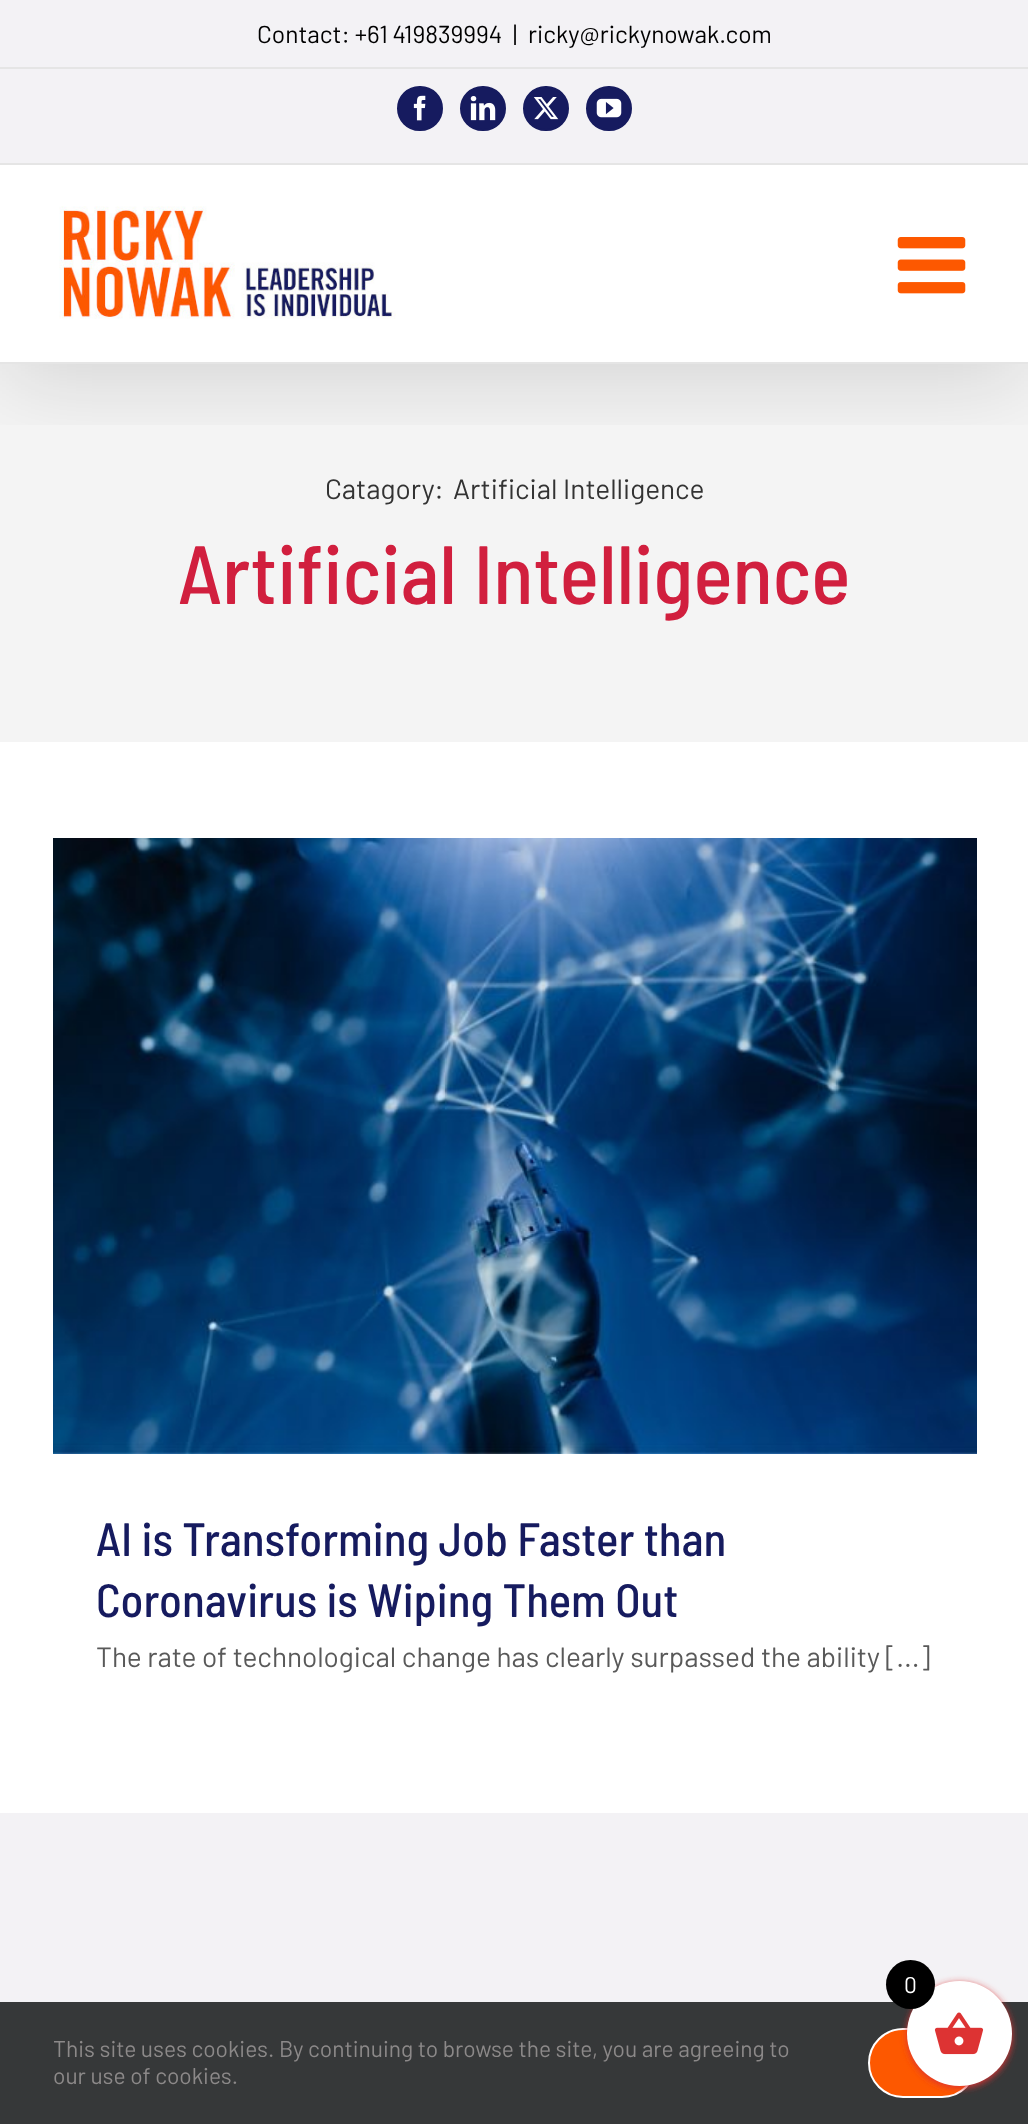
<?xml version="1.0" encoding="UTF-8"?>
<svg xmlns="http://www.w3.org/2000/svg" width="1028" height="2124">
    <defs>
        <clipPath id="clip1"><rect x="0" y="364" width="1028" height="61"/></clipPath>
        <filter id="blur1" x="-50%" y="-200%" width="200%" height="500%"><feGaussianBlur stdDeviation="44"/></filter>
        <filter id="blur2" x="-50%" y="-200%" width="200%" height="500%"><feGaussianBlur stdDeviation="3.5"/></filter>
    </defs>
    <rect width="100%" height="100%" fill="#FFFFFF"/>
    <rect x="0" y="364" width="1028" height="378" fill="#F4F4F4"/>
    <g clip-path="url(#clip1)">
        <rect x="4" y="21" width="1022" height="357" fill="#000000" fill-opacity="0.14" filter="url(#blur1)"/>
    </g>
    <rect x="0" y="0" width="1028" height="163" fill="#F3F2F5"/>
    <rect x="0" y="163" width="1028" height="2" fill="#E5E5E5"/>
    <rect x="0" y="67" width="1028" height="2" fill="#E5E5E5"/>
    <text x="257" y="43" font-family="Barlow" font-size="24.5" fill="#000000">Contact: +61 419839994</text>
    <text x="513" y="43" font-family="Barlow" font-size="24.5" fill="#000000">|</text>
    <text x="528" y="43" font-family="Barlow" font-size="24.5" fill="#000000">ricky@rickynowak.com</text>
    <rect x="398" y="87" width="44" height="43" rx="21.5" fill="#161B5F" stroke="#161B5F" stroke-width="2"/>
    <image x="413" y="95" width="13" height="26" href="img_01.png"/>
    <rect x="461" y="87" width="44" height="43" rx="21.5" fill="#161B5F" stroke="#161B5F" stroke-width="2"/>
    <image x="470" y="96" width="26" height="25" href="img_02.png"/>
    <rect x="524" y="87" width="44" height="43" rx="21.5" fill="#161B5F" stroke="#161B5F" stroke-width="2"/>
    <image x="533" y="97" width="26" height="23" href="img_03.png"/>
    <rect x="587" y="87" width="44" height="43" rx="21.5" fill="#161B5F" stroke="#161B5F" stroke-width="2"/>
    <image x="596" y="98" width="26" height="20" href="img_04.png"/>
    <rect x="0" y="362" width="1028" height="2" fill="#E5E5E5"/>
    <image x="59" y="206" width="337" height="113" href="img_05.png"/>
    <image x="897" y="237" width="69" height="57" href="img_06.png"/>
    <text x="325" y="499" font-family="Barlow" font-size="28" fill="#333333">Catagory:</text>
    <text x="453" y="499" font-family="Barlow" font-size="28" fill="#333333">Artificial Intelligence</text>
    <text x="178" y="604" font-family="Barlow Semi Condensed" font-size="82.5" font-weight="500" fill="#D11F3E">Artificial Intelligence</text>
    <image x="53" y="838" width="924" height="616" href="img_07.png"/>
    <text font-family="Barlow Semi Condensed" font-size="46.75" font-weight="500" fill="#161B5F">
        <tspan x="96" y="1556">AI is Transforming Job Faster than</tspan>
        <tspan x="96" y="1617">Coronavirus is Wiping Them Out</tspan>
    </text>
    <text x="96" y="1667" font-family="Barlow" font-size="28" fill="#595959">The rate of technological change has clearly surpassed the ability [...]</text>
    <rect x="0" y="1813" width="1028" height="189" fill="#F3F2F5"/>
    <rect x="0" y="2002" width="1028" height="122" fill="#363839"/>
    <rect x="869" y="2029" width="107" height="68" rx="34" fill="#FD5800" stroke="#FFFFFF" stroke-width="2"/>
    <rect x="907" y="1983" width="105" height="105" rx="52.5" fill="#DD3333" filter="url(#blur2)"/>
    <circle cx="959.5" cy="2033.5" r="52.5" fill="#FFFFFF"/>
    <circle cx="910.5" cy="1984.5" r="24.5" fill="#000000"/>
    <text x="904" y="1993" font-family="Barlow" font-size="22.75" fill="#FFFFFF">0</text>
    <image x="934" y="2012" width="50" height="43" href="img_08.png"/>
    <text font-family="Barlow" font-size="22.75" fill="#8C8989">
        <tspan x="53" y="2057">This site uses cookies. By continuing to browse the site, you are agreeing to</tspan>
        <tspan x="53" y="2084">our use of cookies.</tspan>
    </text>
</svg>
